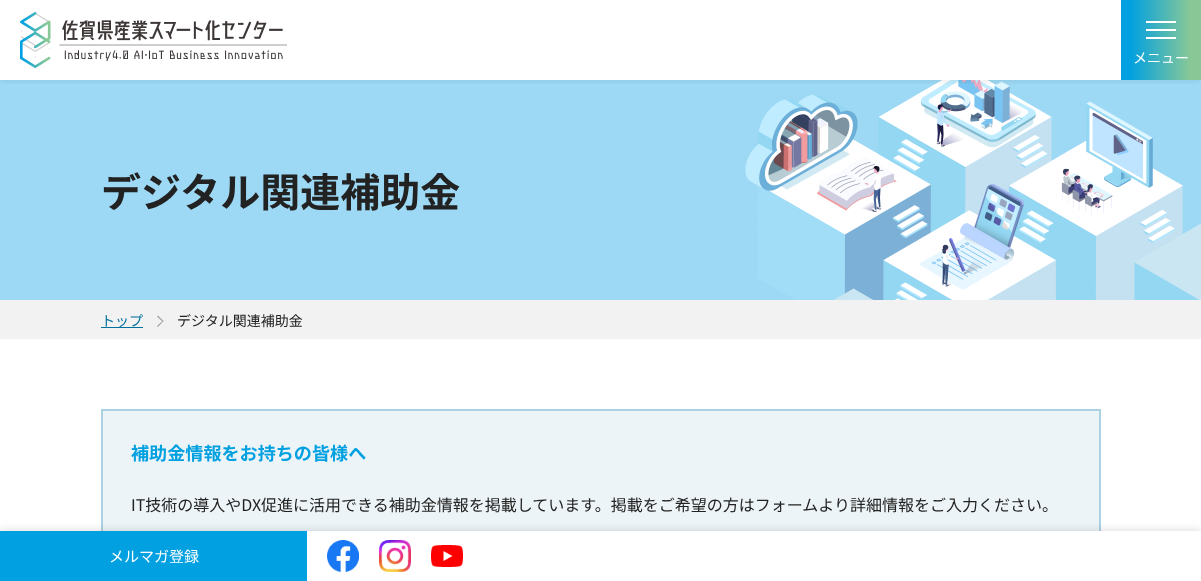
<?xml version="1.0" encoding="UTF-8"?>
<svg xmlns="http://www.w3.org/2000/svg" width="1201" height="581">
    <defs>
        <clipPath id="clip1"><rect x="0" y="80" width="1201" height="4"/></clipPath>
        <filter id="blur1" x="-50%" y="-200%" width="200%" height="500%"><feGaussianBlur stdDeviation="5"/></filter>
        <linearGradient id="g1" gradientUnits="userSpaceOnUse" x1="1121" y1="40" x2="1201" y2="40"><stop offset="0.11" stop-color="#00A0E1"/><stop offset="0.87" stop-color="#89C896"/></linearGradient>
    </defs>
    <rect width="100%" height="100%" fill="#FFFFFF"/>
    <rect x="0" y="80" width="1201" height="220" fill="#9DD9F5"/>
    <image x="745" y="80" width="456" height="220" href="img_02.png"/>
    <g clip-path="url(#clip1)">
        <rect x="0" y="0" width="1201" height="80" fill="#000000" fill-opacity="0.1" filter="url(#blur1)"/>
    </g>
    <image x="20" y="12" width="267" height="56" href="img_01.png"/>
    <rect x="1121" y="0" width="80" height="80" fill="url(#g1)"/>
    <rect x="1146" y="21" width="30" height="2" fill="#FFFFFF"/>
    <rect x="1146" y="29" width="30" height="2" fill="#FFFFFF"/>
    <rect x="1146" y="37" width="30" height="2" fill="#FFFFFF"/>
    <text x="1133" y="63" font-family="Noto Sans JP" font-size="14" fill="#FFFFFF">メニュー</text>
    <text x="101" y="207" font-family="Noto Sans JP" font-size="40" font-weight="700" fill="#222222">デジタル関連補助金</text>
    <rect x="0" y="300" width="1201" height="39" fill="#F2F2F2"/>
    <rect x="101" y="327" width="42" height="1" fill="#00709D"/>
    <text x="101" y="326" font-family="Noto Sans JP" font-size="14" fill="#00709D">トップ</text>
    <path d="M 157 316.5 L 158 315.5 L 163.5 321 L 163 322 Z" fill="#A2A2A2"/>
    <path d="M 157 326 L 163 320.5 L 163.5 321 L 158 327 Z" fill="#A2A2A2"/>
    <text x="177" y="326" font-family="Noto Sans JP" font-size="14" fill="#222222">デジタル関連補助金</text>
    <rect x="103" y="411" width="996" height="120" fill="#EDF4F7"/>
    <rect x="102" y="410" width="998" height="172" fill="none" stroke="#AAD2E3" stroke-width="2"/>
    <text x="131" y="460" font-family="Noto Sans JP" font-size="18.1" font-weight="700" fill="#00A0E1">補助金情報をお持ちの皆様へ</text>
    <text x="131" y="511" font-family="Noto Sans JP" font-size="16" fill="#222222">IT技術の導入やDX促進に活用できる補助金情報を掲載しています。掲載をご希望の方はフォームより詳細情報をご入力ください。</text>
    <rect x="0" y="531" width="1201" height="50" fill="#000000" fill-opacity="0.16" filter="url(#blur1)"/>
    <rect x="307" y="531" width="894" height="50" fill="#FFFFFF"/>
    <rect x="0" y="531" width="307" height="50" fill="#01A0E1"/>
    <text x="109" y="562" font-family="Noto Sans JP" font-size="15" fill="#FFFFFF">メルマガ登録</text>
    <image x="327" y="540" width="32" height="32" href="img_03.png"/>
    <image x="379" y="540" width="32" height="32" href="img_04.png"/>
    <image x="431" y="545" width="32" height="22" href="img_05.png"/>
</svg>
